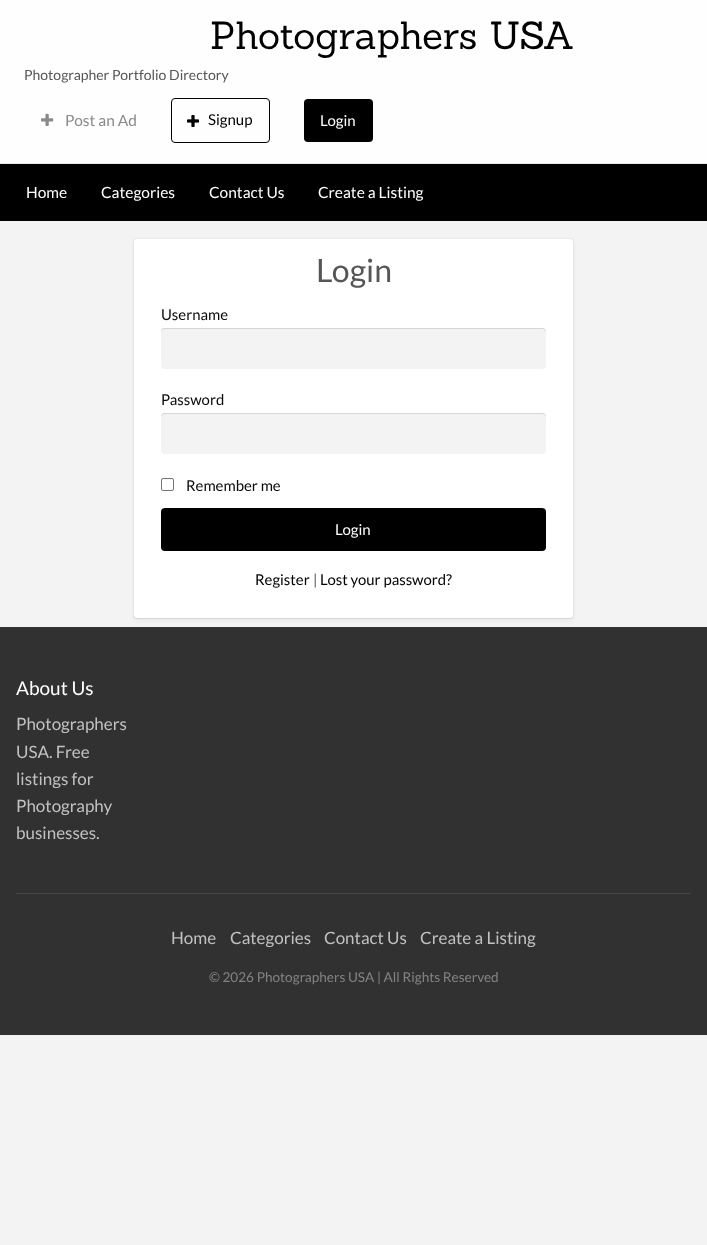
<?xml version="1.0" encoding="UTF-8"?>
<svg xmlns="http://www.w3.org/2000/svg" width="707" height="1245">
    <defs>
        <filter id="blur1" x="-50%" y="-200%" width="200%" height="500%"><feGaussianBlur stdDeviation="2.5"/></filter>
        <filter id="blur2" x="-50%" y="-200%" width="200%" height="500%"><feGaussianBlur stdDeviation="0.5"/></filter>
    </defs>
    <rect width="100%" height="100%" fill="#F3F3F4"/>
    <rect x="0" y="0" width="707" height="163" fill="#FEFEFE"/>
    <rect x="0" y="163" width="707" height="1" fill="#EAEAEA"/>
    <text x="210" y="49" font-family="Sanchez" font-size="38.25" fill="#000000">Photographers USA</text>
    <text x="24" y="80" font-family="Lato" font-size="14" fill="#565656">Photographer Portfolio Directory</text>
    <image x="41" y="113" width="13" height="13" href="img_01.png"/>
    <text x="65" y="126" font-family="Lato" font-size="15.5" fill="#8A8A8A">Post an Ad</text>
    <rect x="171.5" y="98.5" width="98" height="44" rx="3.5" fill="none" stroke="#000000"/>
    <image x="187" y="115" width="12" height="12" href="img_02.png"/>
    <text x="208" y="125" font-family="Lato" font-size="15" fill="#000000">Signup</text>
    <rect x="304" y="99" width="69" height="43" rx="4" fill="#000000"/>
    <text x="320" y="126" font-family="Lato" font-size="15" fill="#FFFFFF">Login</text>
    <rect x="0" y="164" width="707" height="57" fill="#000000"/>
    <text x="26" y="198" font-family="Lato" font-size="15.5" fill="#FFFFFF">Home</text>
    <text x="101" y="198" font-family="Lato" font-size="15.5" fill="#FFFFFF">Categories</text>
    <text x="209" y="198" font-family="Lato" font-size="15.5" fill="#FFFFFF">Contact Us</text>
    <text x="318" y="198" font-family="Lato" font-size="15.5" fill="#FFFFFF">Create a Listing</text>
    <rect x="0" y="627" width="707" height="408" fill="#313131"/>
    <rect x="134" y="241" width="439" height="379" rx="4" fill="#000000" fill-opacity="0.05" filter="url(#blur1)"/>
    <rect x="134" y="240" width="439" height="379" rx="4" fill="#000000" fill-opacity="0.05" filter="url(#blur2)"/>
    <rect x="133.5" y="238.5" width="440" height="380" fill="none" stroke="#000000" stroke-opacity="0.03"/>
    <rect x="134" y="239" width="439" height="379" rx="4" fill="#FFFFFF"/>
    <text x="316" y="282" font-family="Lato" font-size="32" fill="#565656">Login</text>
    <text x="161" y="320" font-family="Lato" font-size="14.9" fill="#0A0A0A">Username</text>
    <rect x="161" y="328" width="385" height="41" rx="4" fill="#F3F3F4"/>
    <path d="M 165 329 H 542 C 544 329 546 331 546 333 C 546 330 545 328 542 328 H 165 C 162 328 161 330 161 333 C 161 331 163 329 165 329 Z" fill="#000000" fill-opacity="0.12"/>
    <text x="161" y="405" font-family="Lato" font-size="14.9" fill="#0A0A0A">Password</text>
    <rect x="161" y="413" width="385" height="41" rx="4" fill="#F3F3F4"/>
    <path d="M 165 414 H 542 C 544 414 546 416 546 418 C 546 415 545 413 542 413 H 165 C 162 413 161 415 161 418 C 161 416 163 414 165 414 Z" fill="#000000" fill-opacity="0.12"/>
    <rect x="161.5" y="478.5" width="12" height="12" rx="1.5" fill="none" stroke="#767676"/>
    <text x="186" y="491" font-family="Lato" font-size="14.9" fill="#0A0A0A">Remember me</text>
    <rect x="161" y="508" width="385" height="43" rx="4" fill="#000000"/>
    <text x="335" y="535" font-family="Lato" font-size="15" fill="#FFFFFF">Login</text>
    <text x="255" y="585" font-family="Lato" font-size="14.9" fill="#000000">Register</text>
    <text x="313" y="585" font-family="Lato" font-size="14.9" fill="#565656">|</text>
    <text x="320" y="585" font-family="Lato" font-size="14.9" fill="#000000">Lost your password?</text>
    <text x="16" y="695" font-family="Lato" font-size="19" fill="#FFFFFF">About Us</text>
    <text font-family="Lato" font-size="17" fill="#C1C1C1">
        <tspan x="16" y="730">Photographers</tspan>
        <tspan x="16" y="758">USA. Free</tspan>
        <tspan x="16" y="785">listings for</tspan>
        <tspan x="16" y="812">Photography</tspan>
        <tspan x="16" y="839">businesses.</tspan>
    </text>
    <rect x="16" y="893" width="675" height="1" fill="#464646"/>
    <text x="171" y="944" font-family="Lato" font-size="17" fill="#C1C1C1">Home</text>
    <text x="230" y="944" font-family="Lato" font-size="17" fill="#C1C1C1">Categories</text>
    <text x="324" y="944" font-family="Lato" font-size="17" fill="#C1C1C1">Contact Us</text>
    <text x="420" y="944" font-family="Lato" font-size="17" fill="#C1C1C1">Create a Listing</text>
    <text x="209" y="982" font-family="Lato" font-size="13.6" fill="#838383">© 2026 Photographers USA | All Rights Reserved</text>
</svg>
